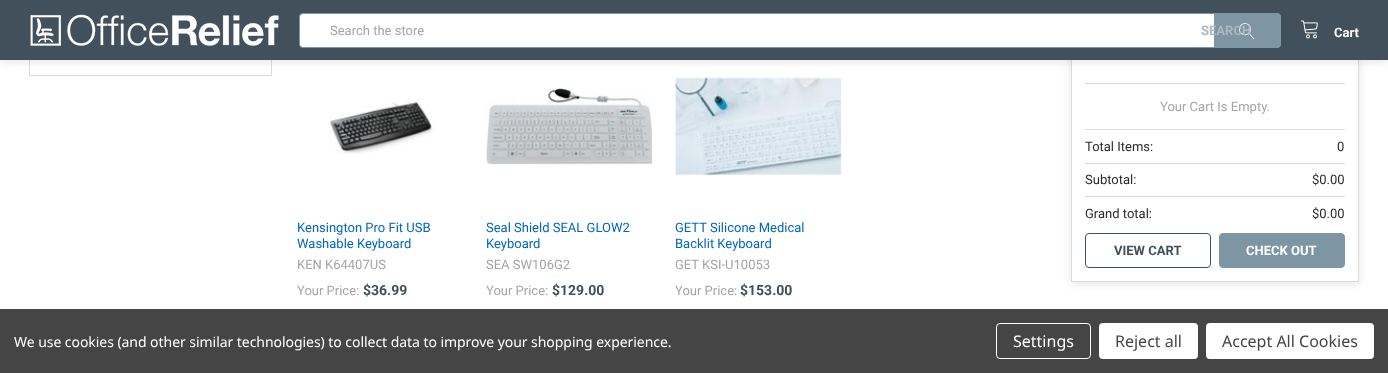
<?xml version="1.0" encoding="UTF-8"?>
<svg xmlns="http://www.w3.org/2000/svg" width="1388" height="373">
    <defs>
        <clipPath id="clip1"><path d="M 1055 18 H 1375 V 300 H 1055 Z M 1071 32 H 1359 V 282 H 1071 Z" clip-rule="evenodd"/></clipPath>
        <filter id="blur1" x="-50%" y="-200%" width="200%" height="500%"><feGaussianBlur stdDeviation="5"/></filter>
    </defs>
    <rect width="100%" height="100%" fill="#FFFFFF"/>
    <rect x="29.5" y="-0.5" width="242" height="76" fill="none" stroke="#DCDCDC"/>
    <image x="675" y="77" width="167" height="99" href="img_06.png"/>
    <g clip-path="url(#clip1)">
        <rect x="1071" y="34" width="288" height="250" fill="#000000" fill-opacity="0.1" filter="url(#blur1)"/>
    </g>
    <rect x="1071.5" y="32.5" width="287" height="249" fill="none" stroke="#DCDCDC"/>
    <rect x="0" y="2" width="1388" height="60" fill="#000000" fill-opacity="0.1" filter="url(#blur1)"/>
    <rect x="0" y="0" width="1388" height="60" fill="#41505B"/>
    <image x="30" y="14" width="249" height="32" href="img_01.png"/>
    <rect x="299.5" y="13.5" width="981" height="34" rx="3.5" fill="#FFFFFF" stroke="#7E95A4"/>
    <path d="M 1214 13 H 1277 C 1279 13 1281 15 1281 17 V 44 C 1281 46 1279 48 1277 48 H 1214 Z" fill="#7E95A4"/>
    <image x="1239" y="23" width="16" height="17" href="img_02.png"/>
    <text x="330" y="35" font-family="Roboto" font-size="13" fill="#A5A5A5">Search the store</text>
    <text x="1201" y="35" font-family="Roboto" font-size="13" font-weight="700" fill="#AAB9C3">SEARCH</text>
    <image x="1301" y="20" width="17" height="19" href="img_03.png"/>
    <text x="1334" y="37" font-family="Roboto" font-size="13" font-weight="700" fill="#FFFFFF">Cart</text>
    <image x="330" y="98" width="103" height="56" href="img_04.png"/>
    <text font-family="Roboto" font-size="13" fill="#0066C0">
        <tspan x="297" y="232">Kensington Pro Fit USB</tspan>
        <tspan x="297" y="248">Washable Keyboard</tspan>
    </text>
    <text x="297" y="269" font-family="Roboto" font-size="13" fill="#A5A5A5">KEN K64407US</text>
    <text x="297" y="295" font-family="Roboto" font-size="13" fill="#A5A5A5">Your Price:</text>
    <text x="363" y="295" font-family="Roboto" font-size="14" font-weight="700" fill="#41505B">$36.99</text>
    <image x="486" y="88" width="167" height="77" href="img_05.png"/>
    <text font-family="Roboto" font-size="13" fill="#0066C0">
        <tspan x="486" y="232">Seal Shield SEAL GLOW2</tspan>
        <tspan x="486" y="248">Keyboard</tspan>
    </text>
    <text x="486" y="269" font-family="Roboto" font-size="13" fill="#A5A5A5">SEA SW106G2</text>
    <text x="486" y="295" font-family="Roboto" font-size="13" fill="#A5A5A5">Your Price:</text>
    <text x="552" y="295" font-family="Roboto" font-size="14" font-weight="700" fill="#41505B">$129.00</text>
    <text font-family="Roboto" font-size="13" fill="#0066C0">
        <tspan x="675" y="232">GETT Silicone Medical</tspan>
        <tspan x="675" y="248">Backlit Keyboard</tspan>
    </text>
    <text x="675" y="269" font-family="Roboto" font-size="13" fill="#A5A5A5">GET KSI-U10053</text>
    <text x="675" y="295" font-family="Roboto" font-size="13" fill="#A5A5A5">Your Price:</text>
    <text x="740" y="295" font-family="Roboto" font-size="14" font-weight="700" fill="#41505B">$153.00</text>
    <rect x="1085" y="83" width="260" height="1" fill="#DCDCDC"/>
    <rect x="1085" y="129" width="260" height="1" fill="#DCDCDC"/>
    <text x="1160" y="111" font-family="Roboto" font-size="13" fill="#A5A5A5">Your Cart Is Empty.</text>
    <rect x="1085" y="163" width="260" height="1" fill="#DCDCDC"/>
    <text x="1085" y="151" font-family="Roboto" font-size="13" fill="#2B2B2B">Total Items:</text>
    <text x="1337" y="151" font-family="Roboto" font-size="13" fill="#2B2B2B">0</text>
    <rect x="1085" y="196" width="260" height="1" fill="#DCDCDC"/>
    <text x="1085" y="184" font-family="Roboto" font-size="13" fill="#2B2B2B">Subtotal:</text>
    <text x="1312" y="184" font-family="Roboto" font-size="13" fill="#2B2B2B">$0.00</text>
    <text x="1085" y="218" font-family="Roboto" font-size="13" fill="#2B2B2B">Grand total:</text>
    <text x="1312" y="218" font-family="Roboto" font-size="13" fill="#2B2B2B">$0.00</text>
    <rect x="1085.5" y="233.5" width="125" height="34" rx="3.5" fill="none" stroke="#41505B"/>
    <text x="1114" y="255" font-family="Roboto" font-size="13" font-weight="700" fill="#41505B">VIEW CART</text>
    <rect x="1219.5" y="233.5" width="125" height="34" rx="3.5" fill="#7E95A4" stroke="#7E95A4"/>
    <text x="1246" y="255" font-family="Roboto" font-size="13" font-weight="700" fill="#FFFFFF">CHECK OUT</text>
    <rect x="0" y="309" width="1388" height="64" fill="#454545"/>
    <text x="14" y="347" font-family="Noto Sans" font-size="14" letter-spacing="-0.05" fill="#FFFFFF">We use cookies (and other similar technologies) to collect data to improve your shopping experience.</text>
    <rect x="996.5" y="323.5" width="94" height="35" rx="3.5" fill="none" stroke="#FFFFFF"/>
    <text x="1013" y="347" font-family="Noto Sans" font-size="16" fill="#FFFFFF">Settings</text>
    <rect x="1099" y="323" width="99" height="36" rx="4" fill="#FFFFFF"/>
    <text x="1115" y="347" font-family="Noto Sans" font-size="16" fill="#454545">Reject all</text>
    <rect x="1206" y="323" width="168" height="36" rx="4" fill="#FFFFFF"/>
    <text x="1222" y="347" font-family="Noto Sans" font-size="16" fill="#454545">Accept All Cookies</text>
</svg>
